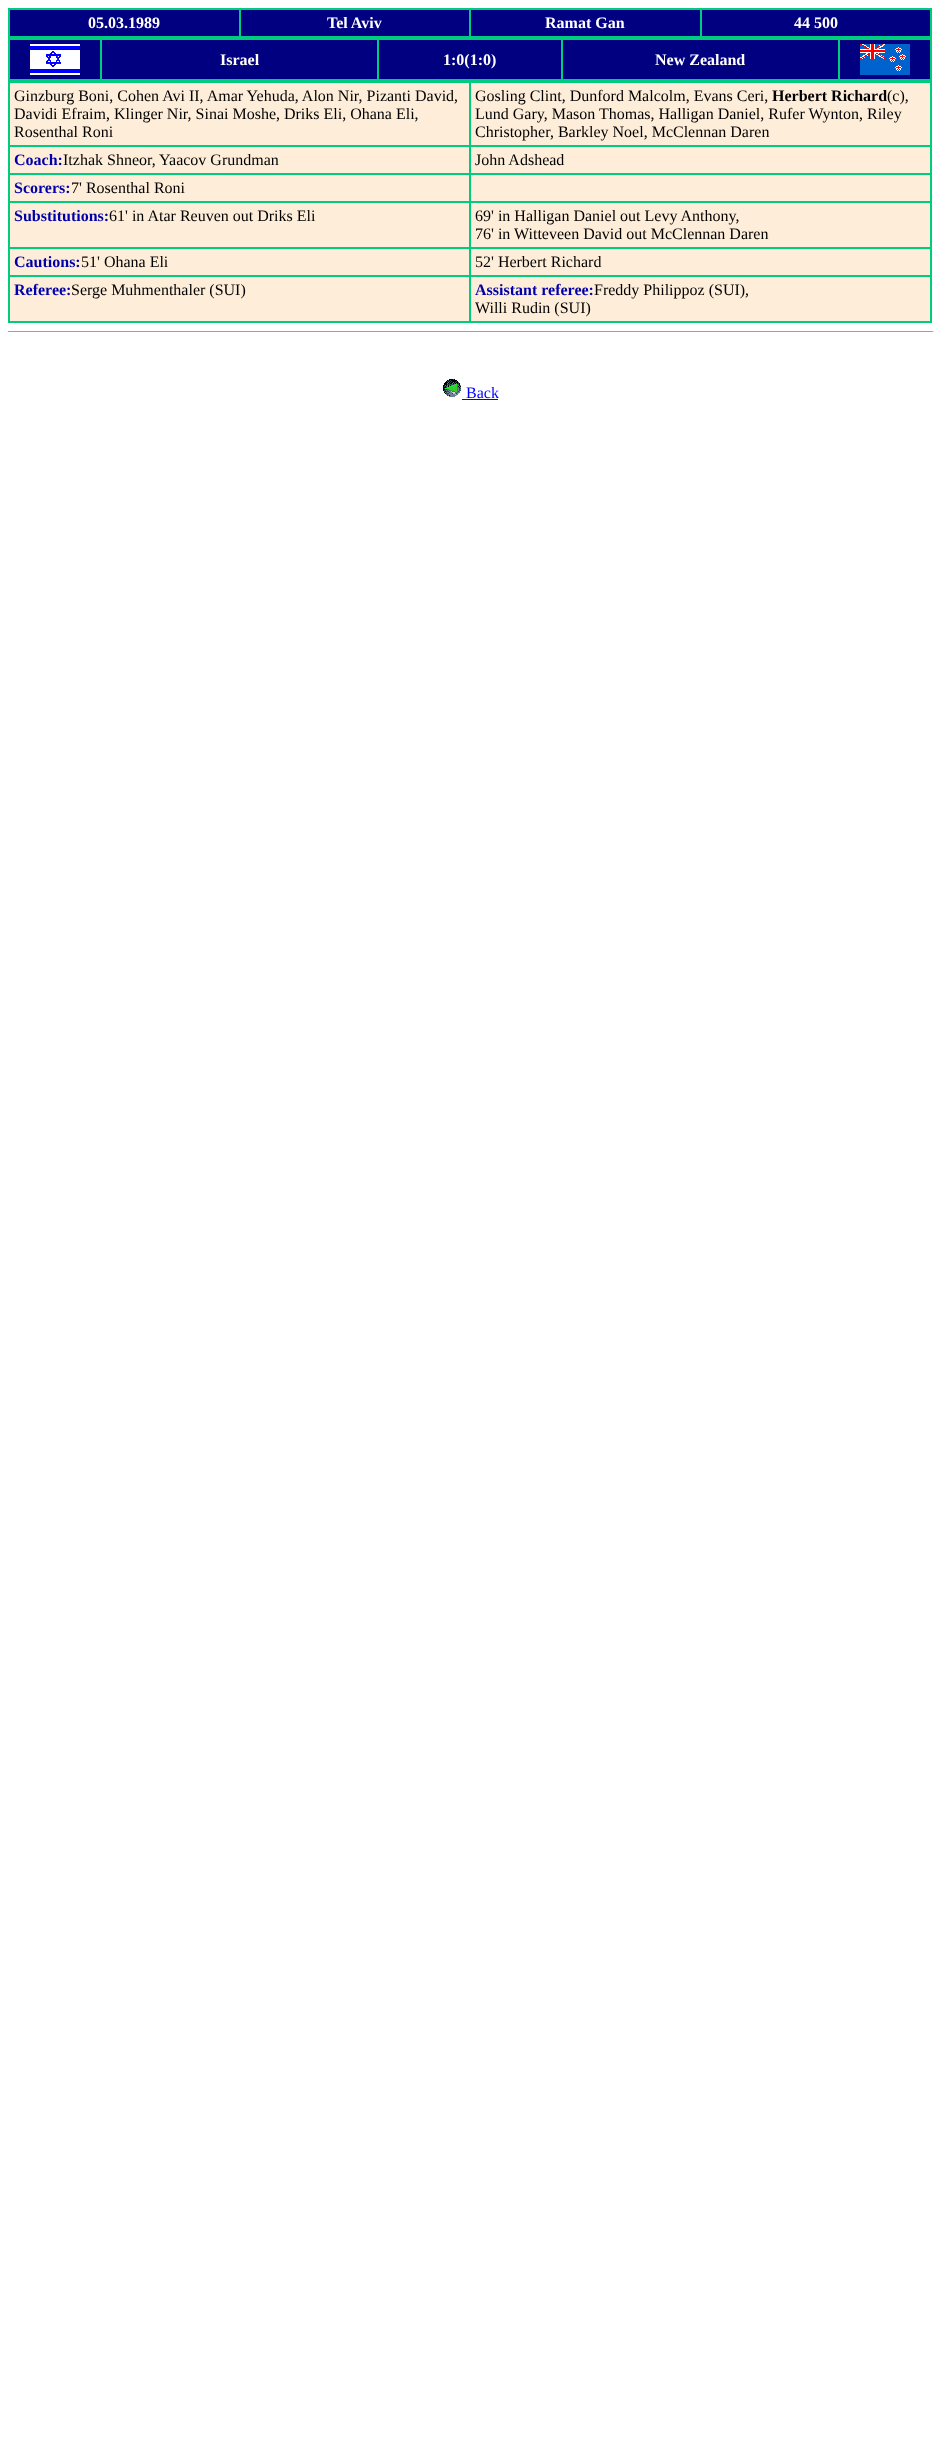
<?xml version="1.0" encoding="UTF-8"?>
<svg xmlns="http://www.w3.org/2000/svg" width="940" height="2449">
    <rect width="100%" height="100%" fill="#FFFFFF"/>
    <rect x="10" y="10" width="920" height="26" fill="#000080"/>
    <rect x="8.5" y="8.5" width="923" height="29" fill="none" stroke="#00CC80"/>
    <rect x="9.5" y="9.5" width="230" height="27" fill="none" stroke="#00CC80"/>
    <text x="88" y="28" font-family="Liberation Serif" font-size="16" font-weight="700" fill="#FFFFFF">05.03.1989</text>
    <rect x="240.5" y="9.5" width="229" height="27" fill="none" stroke="#00CC80"/>
    <text x="327" y="28" font-family="Liberation Serif" font-size="16" font-weight="700" fill="#FFFFFF">Tel Aviv</text>
    <rect x="470.5" y="9.5" width="230" height="27" fill="none" stroke="#00CC80"/>
    <text x="545" y="28" font-family="Liberation Serif" font-size="16" font-weight="700" fill="#FFFFFF">Ramat Gan</text>
    <rect x="701.5" y="9.5" width="229" height="27" fill="none" stroke="#00CC80"/>
    <text x="794" y="28" font-family="Liberation Serif" font-size="16" font-weight="700" fill="#FFFFFF">44 500</text>
    <rect x="10" y="40" width="920" height="39" fill="#000080"/>
    <rect x="8.5" y="38.5" width="923" height="42" fill="none" stroke="#00CC80"/>
    <rect x="9.5" y="39.5" width="91" height="40" fill="none" stroke="#00CC80"/>
    <image x="30" y="44" width="50" height="31" href="img_01.png"/>
    <rect x="101.5" y="39.5" width="276" height="40" fill="none" stroke="#00CC80"/>
    <text x="220" y="65" font-family="Liberation Serif" font-size="16" font-weight="700" fill="#FFFFFF">Israel</text>
    <rect x="378.5" y="39.5" width="183" height="40" fill="none" stroke="#00CC80"/>
    <text x="443" y="65" font-family="Liberation Serif" font-size="16" font-weight="700" fill="#FFFFFF">1:0(1:0)</text>
    <rect x="562.5" y="39.5" width="276" height="40" fill="none" stroke="#00CC80"/>
    <text x="655" y="65" font-family="Liberation Serif" font-size="16" font-weight="700" fill="#FFFFFF">New Zealand</text>
    <rect x="839.5" y="39.5" width="91" height="40" fill="none" stroke="#00CC80"/>
    <image x="860" y="44" width="50" height="31" href="img_02.png"/>
    <rect x="10" y="83" width="920" height="238" fill="#FEEED9"/>
    <rect x="8.5" y="81.5" width="923" height="241" fill="none" stroke="#00CC80"/>
    <rect x="9.5" y="82.5" width="460" height="63" fill="none" stroke="#00CC80"/>
    <text font-family="Liberation Serif" font-size="16" fill="#000000">
        <tspan x="14" y="101">Ginzburg Boni, Cohen Avi II, Amar Yehuda, Alon Nir, Pizanti David,</tspan>
        <tspan x="14" y="119">Davidi Efraim, Klinger Nir, Sinai Moshe, Driks Eli, Ohana Eli,</tspan>
        <tspan x="14" y="137">Rosenthal Roni</tspan>
    </text>
    <rect x="470.5" y="82.5" width="460" height="63" fill="none" stroke="#00CC80"/>
    <text x="475" y="101" font-family="Liberation Serif" font-size="16" fill="#000000">Gosling Clint, Dunford Malcolm, Evans Ceri,</text>
    <text x="772" y="101" font-family="Liberation Serif" font-size="16" font-weight="700" fill="#000000">Herbert Richard</text>
    <text x="887" y="101" font-family="Liberation Serif" font-size="16" fill="#000000">(c),</text>
    <text font-family="Liberation Serif" font-size="16" fill="#000000">
        <tspan x="475" y="119">Lund Gary, Mason Thomas, Halligan Daniel, Rufer Wynton, Riley</tspan>
        <tspan x="475" y="137">Christopher, Barkley Noel, McClennan Daren</tspan>
    </text>
    <rect x="9.5" y="146.5" width="460" height="27" fill="none" stroke="#00CC80"/>
    <text x="14" y="165" font-family="Liberation Serif" font-size="16" font-weight="700" fill="#0000AA">Coach:</text>
    <text x="63" y="165" font-family="Liberation Serif" font-size="16" fill="#000000">Itzhak Shneor, Yaacov Grundman</text>
    <rect x="470.5" y="146.5" width="460" height="27" fill="none" stroke="#00CC80"/>
    <text x="475" y="165" font-family="Liberation Serif" font-size="16" fill="#000000">John Adshead</text>
    <rect x="9.5" y="174.5" width="460" height="27" fill="none" stroke="#00CC80"/>
    <text x="14" y="193" font-family="Liberation Serif" font-size="16" font-weight="700" fill="#0000AA">Scorers:</text>
    <text x="71" y="193" font-family="Liberation Serif" font-size="16" fill="#000000">7' Rosenthal Roni</text>
    <rect x="470.5" y="174.5" width="460" height="27" fill="none" stroke="#00CC80"/>
    <rect x="9.5" y="202.5" width="460" height="45" fill="none" stroke="#00CC80"/>
    <text x="14" y="221" font-family="Liberation Serif" font-size="16" font-weight="700" fill="#0000AA">Substitutions:</text>
    <text x="109" y="221" font-family="Liberation Serif" font-size="16" fill="#000000">61' in Atar Reuven out Driks Eli</text>
    <rect x="470.5" y="202.5" width="460" height="45" fill="none" stroke="#00CC80"/>
    <text font-family="Liberation Serif" font-size="16" fill="#000000">
        <tspan x="475" y="221">69' in Halligan Daniel out Levy Anthony,</tspan>
        <tspan x="475" y="239">76' in Witteveen David out McClennan Daren</tspan>
    </text>
    <rect x="9.5" y="248.5" width="460" height="27" fill="none" stroke="#00CC80"/>
    <text x="14" y="267" font-family="Liberation Serif" font-size="16" font-weight="700" fill="#0000AA">Cautions:</text>
    <text x="81" y="267" font-family="Liberation Serif" font-size="16" fill="#000000">51' Ohana Eli</text>
    <rect x="470.5" y="248.5" width="460" height="27" fill="none" stroke="#00CC80"/>
    <text x="475" y="267" font-family="Liberation Serif" font-size="16" fill="#000000">52' Herbert Richard</text>
    <rect x="9.5" y="276.5" width="460" height="45" fill="none" stroke="#00CC80"/>
    <text x="14" y="295" font-family="Liberation Serif" font-size="16" font-weight="700" fill="#0000AA">Referee:</text>
    <text x="71" y="295" font-family="Liberation Serif" font-size="16" fill="#000000">Serge Muhmenthaler (SUI)</text>
    <rect x="470.5" y="276.5" width="460" height="45" fill="none" stroke="#00CC80"/>
    <text x="475" y="295" font-family="Liberation Serif" font-size="16" font-weight="700" fill="#0000AA">Assistant referee:</text>
    <text x="594" y="295" font-family="Liberation Serif" font-size="16" fill="#000000">Freddy Philippoz (SUI),</text>
    <text x="475" y="313" font-family="Liberation Serif" font-size="16" fill="#000000">Willi Rudin (SUI)</text>
    <rect x="8" y="331" width="926" height="1" fill="#9F9F9F"/>
    <rect x="933" y="331" width="1" height="1" fill="#EEEEEE"/>
    <image x="443" y="379" width="18" height="18" href="img_03.png"/>
    <text x="466" y="398" font-family="Liberation Serif" font-size="16" fill="#0000FF">Back</text>
    <rect x="462" y="399" width="36" height="1" fill="#0000FF"/>
</svg>
